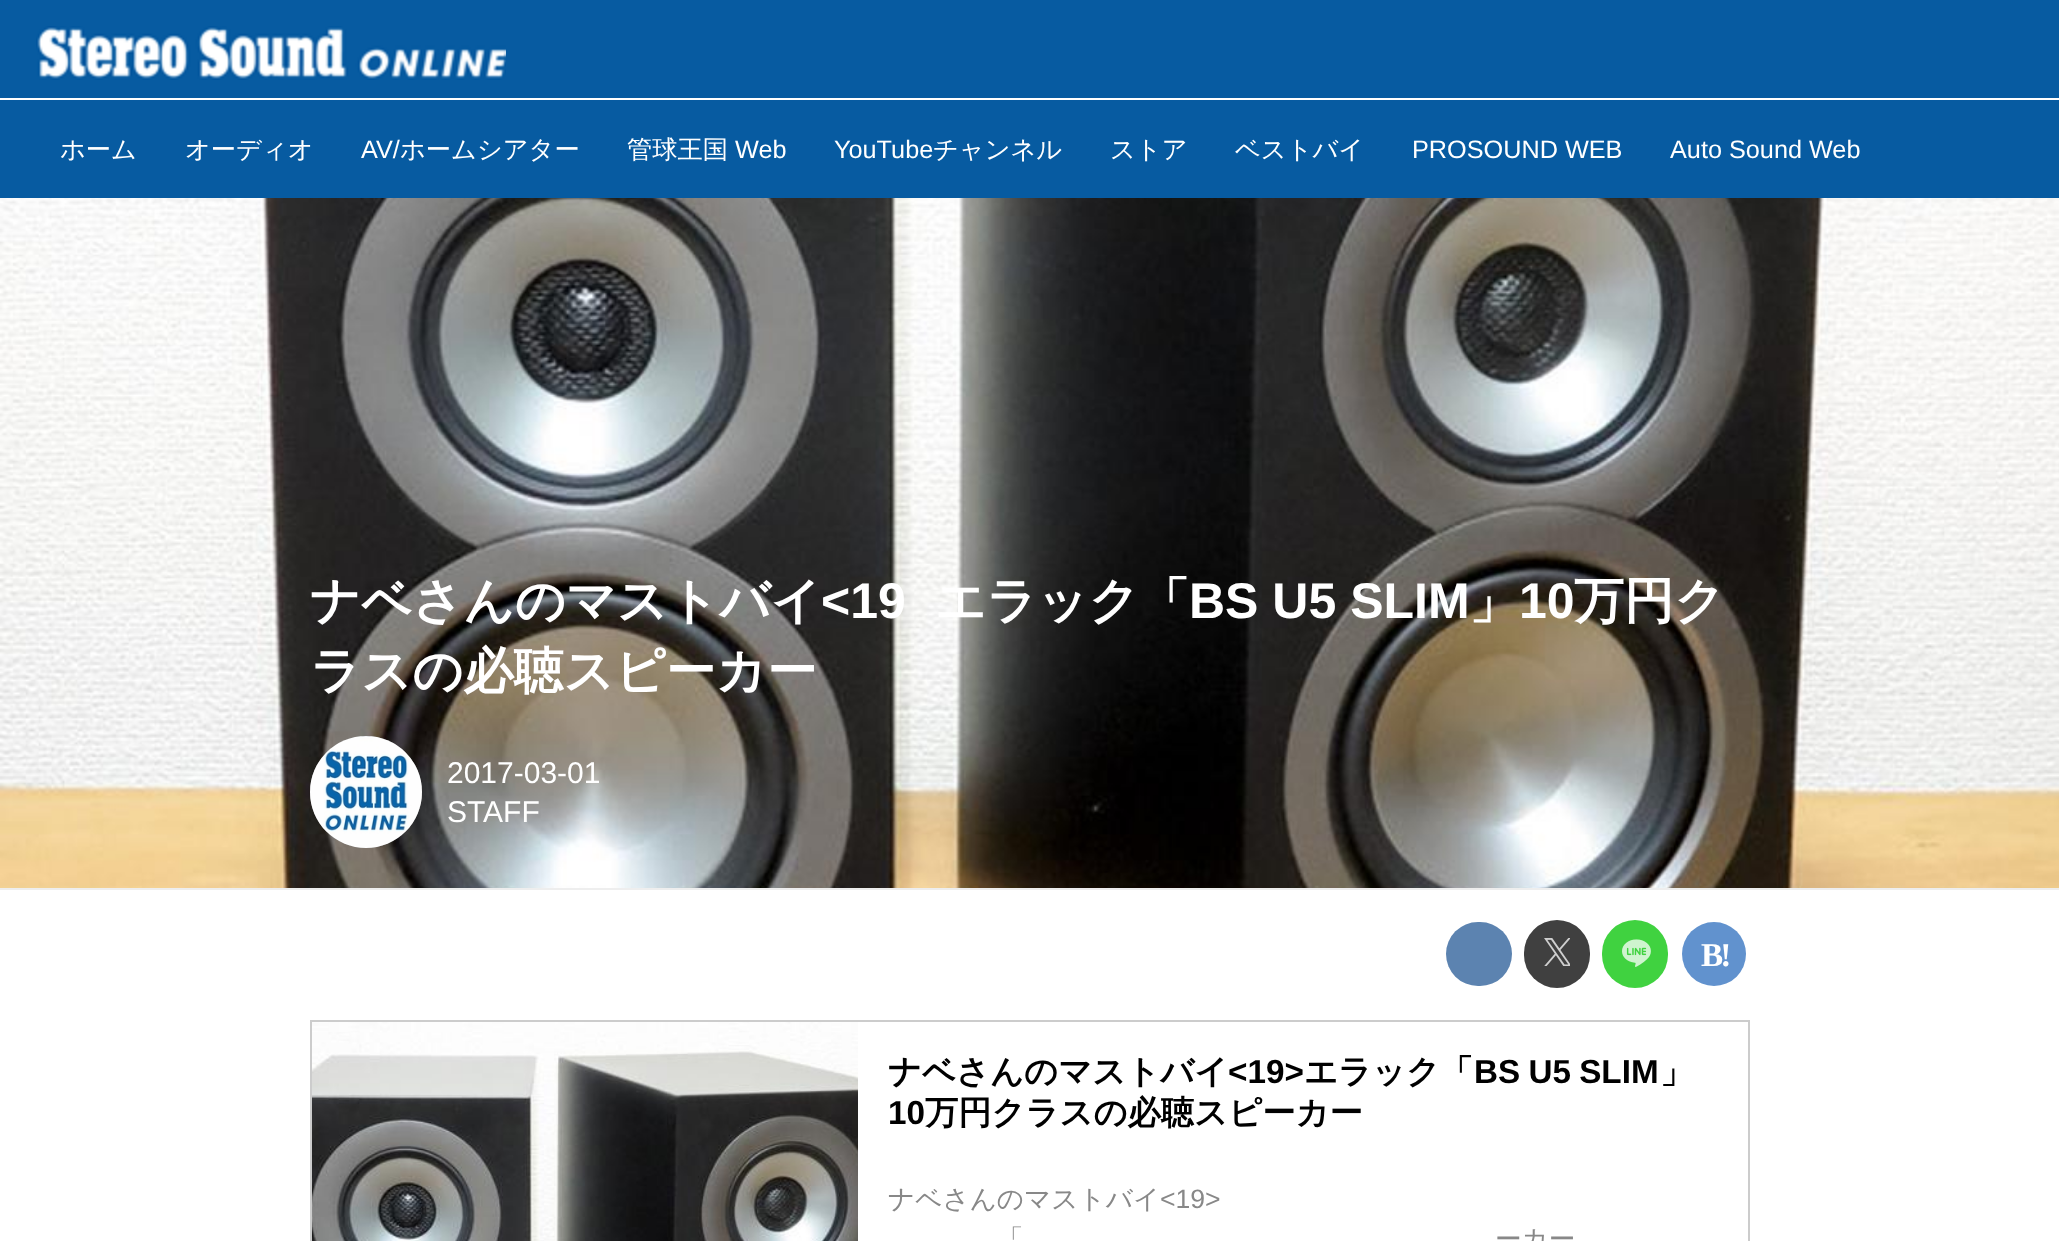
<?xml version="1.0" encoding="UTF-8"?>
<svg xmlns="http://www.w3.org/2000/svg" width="2059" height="1241">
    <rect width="100%" height="100%" fill="#FFFFFF"/>
    <rect x="0" y="0" width="2059" height="98" fill="#075BA1"/>
    <rect x="0" y="100" width="2059" height="98" fill="#075BA1"/>
    <image x="36" y="26" width="470" height="54" href="img_01.png"/>
    <text x="60" y="158" font-family="WenQuanYi Zen Hei" font-size="25.25" font-weight="500" fill="#FFFFFF">ホーム</text>
    <text x="185" y="158" font-family="WenQuanYi Zen Hei" font-size="25.25" font-weight="500" fill="#FFFFFF">オーディオ</text>
    <text x="361" y="158" font-family="Liberation Sans" font-size="25.25" fill="#FFFFFF">AV/</text>
    <text x="400" y="158" font-family="WenQuanYi Zen Hei" font-size="25.25" font-weight="500" fill="#FFFFFF">ホームシアター</text>
    <text x="627" y="158" font-family="WenQuanYi Zen Hei" font-size="25.25" font-weight="500" fill="#FFFFFF">管球王国</text>
    <text x="735" y="158" font-family="Liberation Sans" font-size="25.25" fill="#FFFFFF">Web</text>
    <text x="834" y="158" font-family="Liberation Sans" font-size="25.25" fill="#FFFFFF">YouTube</text>
    <text x="933" y="158" font-family="WenQuanYi Zen Hei" font-size="25.25" font-weight="500" fill="#FFFFFF">チャンネル</text>
    <text x="1110" y="158" font-family="WenQuanYi Zen Hei" font-size="25.25" font-weight="500" fill="#FFFFFF">ストア</text>
    <text x="1235" y="158" font-family="WenQuanYi Zen Hei" font-size="25.25" font-weight="500" fill="#FFFFFF">ベストバイ</text>
    <text x="1412" y="158" font-family="Liberation Sans" font-size="25.25" fill="#FFFFFF">PROSOUND WEB</text>
    <text x="1670" y="158" font-family="Liberation Sans" font-size="25.25" fill="#FFFFFF">Auto Sound Web</text>
    <rect x="0" y="888" width="2059" height="2" fill="#EEEEEE"/>
    <image x="0" y="198" width="2059" height="690" href="img_02.png"/>
    <text x="310" y="618" font-family="WenQuanYi Zen Hei" font-size="50" font-weight="700" fill="#FFFFFF">ナベさんのマストバイ</text>
    <text x="821" y="618" font-family="Liberation Sans" font-size="50" font-weight="700" fill="#FFFFFF">&lt;19</text>
    <text x="935" y="618" font-family="WenQuanYi Zen Hei" font-size="50" font-weight="700" fill="#FFFFFF">エラック「</text>
    <text x="1189" y="618" font-family="Liberation Sans" font-size="50" font-weight="700" fill="#FFFFFF">BS U5 SLIM</text>
    <text x="1469" y="618" font-family="WenQuanYi Zen Hei" font-size="50" font-weight="700" fill="#FFFFFF">」</text>
    <text x="1519" y="618" font-family="Liberation Sans" font-size="50" font-weight="700" fill="#FFFFFF">10</text>
    <text x="1574" y="618" font-family="WenQuanYi Zen Hei" font-size="50" font-weight="700" fill="#FFFFFF">万円ク</text>
    <text x="310" y="688" font-family="WenQuanYi Zen Hei" font-size="50" font-weight="700" fill="#FFFFFF">ラスの必聴スピーカー</text>
    <circle cx="366" cy="792" r="56" fill="#888888"/>
    <image x="310" y="736" width="112" height="112" href="img_03.png"/>
    <text font-family="Liberation Sans" font-size="30" fill="#FFFFFF">
        <tspan x="447" y="783">2017-03-01</tspan>
        <tspan x="447" y="822">STAFF</tspan>
    </text>
    <rect x="1446" y="922" width="66" height="64" rx="32" fill="#5C83B0"/>
    <rect x="1524" y="920" width="66" height="68" rx="33" fill="#404040"/>
    <image x="1544" y="938" width="26" height="28" href="img_04.png"/>
    <rect x="1602" y="920" width="66" height="68" rx="33" fill="#40D240"/>
    <image x="1622" y="939" width="29" height="28" href="img_05.png"/>
    <circle cx="1714" cy="954" r="32" fill="#6192CE"/>
    <text x="1701" y="966" font-family="Liberation Serif" font-size="33.25" font-weight="700" letter-spacing="-3" fill="#FFFFFF">B!</text>
    <rect x="311" y="1021" width="1438" height="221" fill="none" stroke="#CCCCCC" stroke-width="2"/>
    <image x="312" y="1022" width="546" height="219" href="img_06.png"/>
    <text x="888" y="1083" font-family="WenQuanYi Zen Hei" font-size="33.25" font-weight="700" fill="#000000">ナベさんのマストバイ</text>
    <text x="1228" y="1083" font-family="Liberation Sans" font-size="33.25" font-weight="700" fill="#000000">&lt;19&gt;</text>
    <text x="1304" y="1083" font-family="WenQuanYi Zen Hei" font-size="33.25" font-weight="700" fill="#000000">エラック「</text>
    <text x="1474" y="1083" word-spacing="-1" font-family="Liberation Sans" font-size="33.25" font-weight="700" fill="#000000">BS U5 SLIM</text>
    <text x="1660" y="1083" font-family="WenQuanYi Zen Hei" font-size="33.25" font-weight="700" fill="#000000">」</text>
    <text x="888" y="1124" font-family="Liberation Sans" font-size="33.25" font-weight="700" fill="#000000">10</text>
    <text x="925" y="1124" font-family="WenQuanYi Zen Hei" font-size="33.25" font-weight="700" fill="#000000">万円クラスの必聴スピーカー</text>
    <text x="888" y="1208" font-family="WenQuanYi Zen Hei" font-size="26.6" font-weight="500" fill="#888888">ナベさんのマストバイ</text>
    <text x="1160" y="1208" font-family="Liberation Sans" font-size="26.6" fill="#888888">&lt;19&gt;</text>
    <text x="997" y="1248" font-family="WenQuanYi Zen Hei" font-size="26.6" font-weight="500" fill="#888888">「</text>
    <text x="1495" y="1248" font-family="WenQuanYi Zen Hei" font-size="26.6" font-weight="500" fill="#888888">ーカー</text>
</svg>
